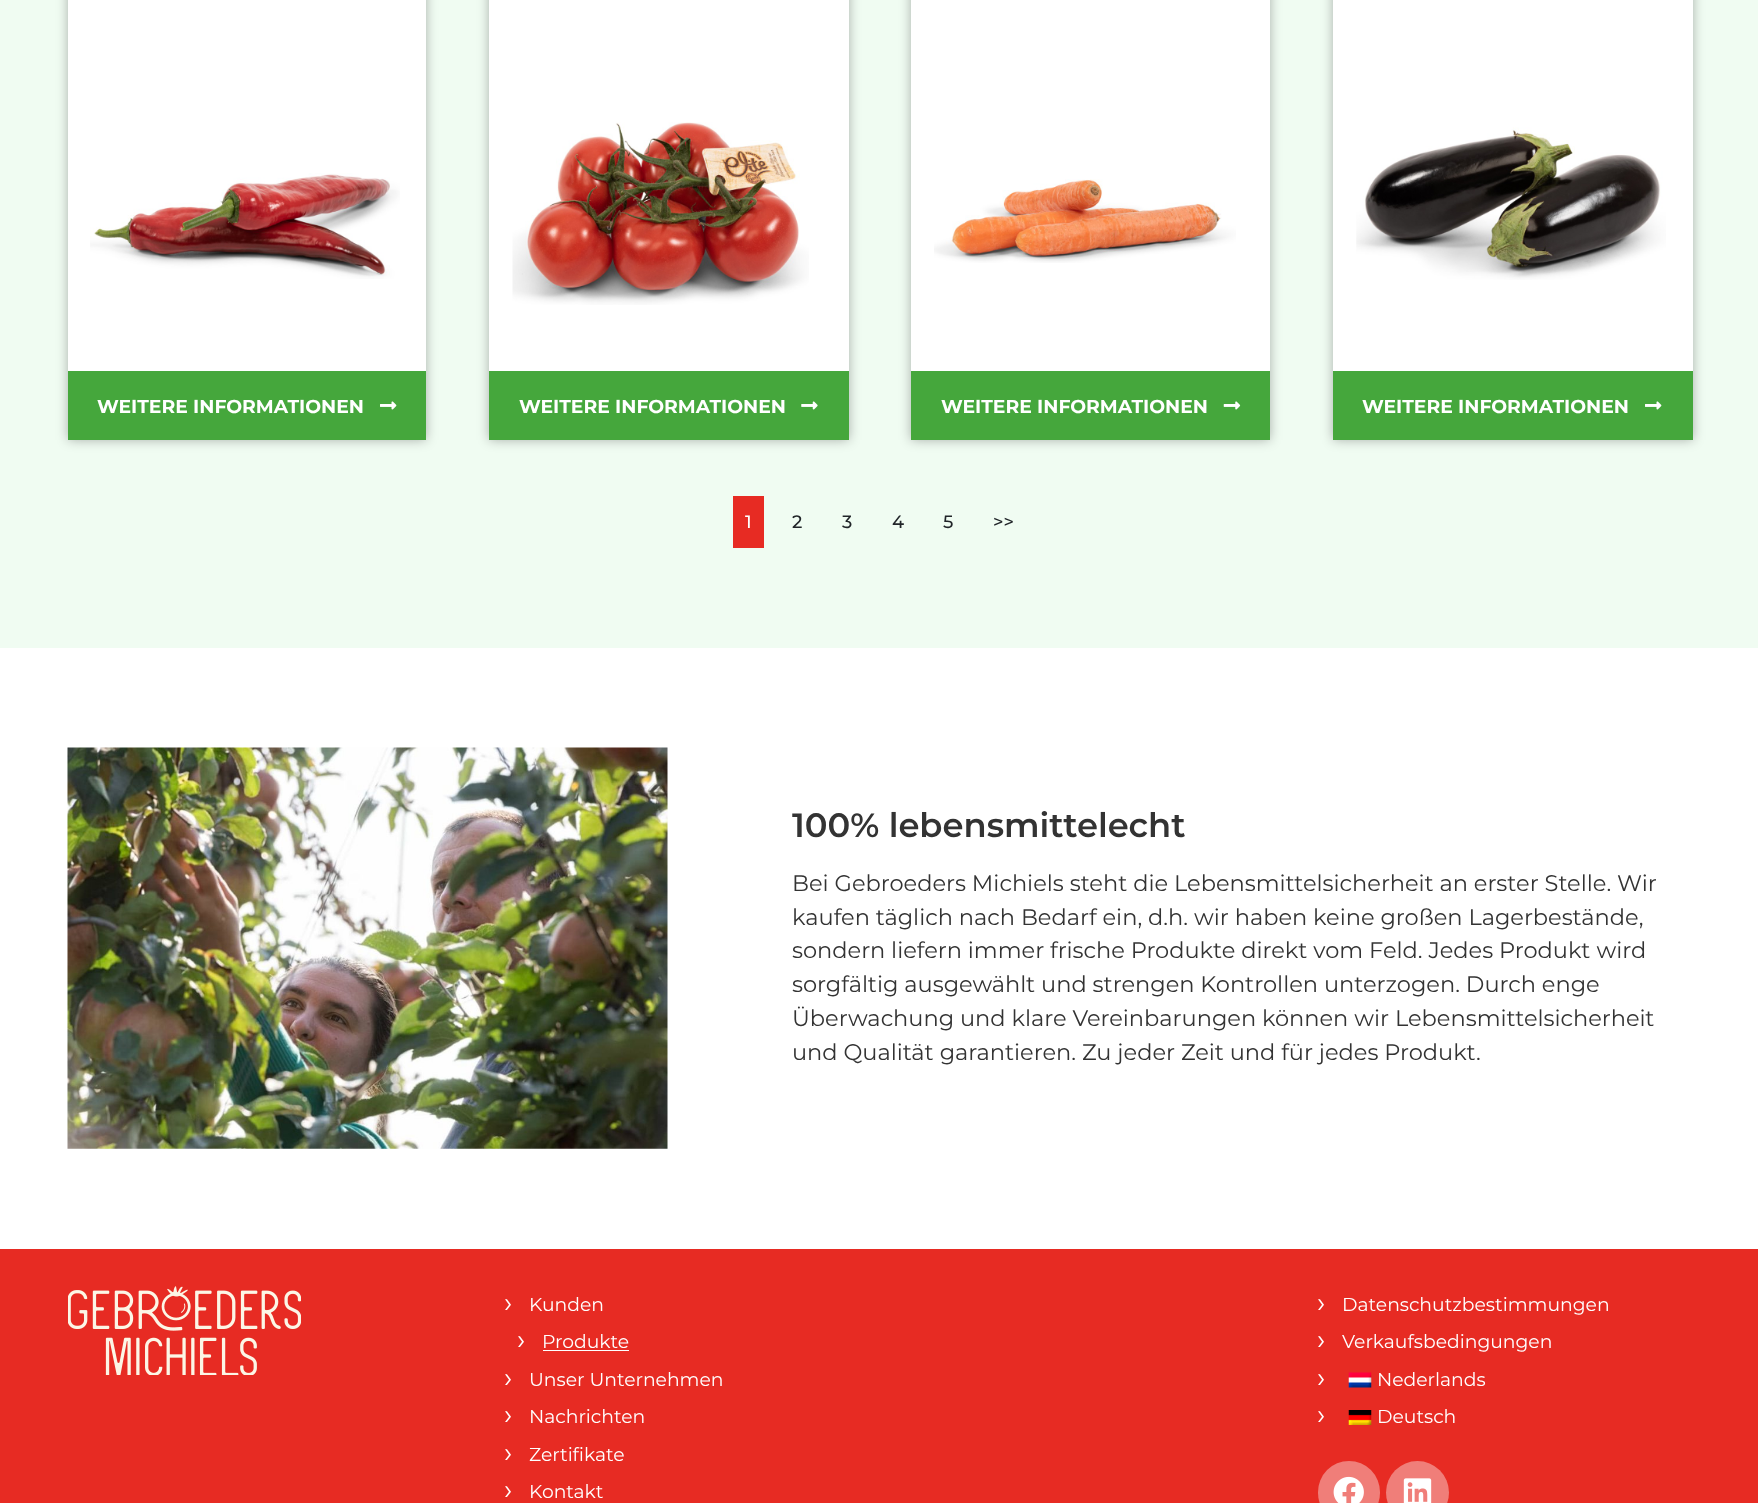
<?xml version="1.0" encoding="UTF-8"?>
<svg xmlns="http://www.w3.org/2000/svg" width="1758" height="1503">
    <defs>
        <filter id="blur1" x="-50%" y="-200%" width="200%" height="500%"><feGaussianBlur stdDeviation="6"/></filter>
    </defs>
    <rect width="100%" height="100%" fill="#FFFFFF"/>
    <rect x="0" y="0" width="1758" height="648" fill="#F0FCF2"/>
    <rect x="68" y="-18" width="358" height="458" fill="#000000" fill-opacity="0.3" filter="url(#blur1)"/>
    <rect x="68" y="0" width="358" height="371" fill="#FFFFFF"/>
    <image x="90" y="173" width="310" height="106" href="img_01.png"/>
    <rect x="68" y="371" width="358" height="69" fill="#45A73C"/>
    <text x="97" y="413" font-family="Montserrat" font-size="18.75" font-weight="700" fill="#FFFFFF">WEITERE INFORMATIONEN</text>
    <image x="380" y="401" width="17" height="9" href="img_02.png"/>
    <rect x="489" y="-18" width="360" height="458" fill="#000000" fill-opacity="0.3" filter="url(#blur1)"/>
    <rect x="489" y="0" width="360" height="371" fill="#FFFFFF"/>
    <image x="512" y="122" width="297" height="183" href="img_03.png"/>
    <rect x="489" y="371" width="360" height="69" fill="#45A73C"/>
    <text x="519" y="413" font-family="Montserrat" font-size="18.75" font-weight="700" fill="#FFFFFF">WEITERE INFORMATIONEN</text>
    <image x="801" y="401" width="17" height="9" href="img_04.png"/>
    <rect x="911" y="-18" width="359" height="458" fill="#000000" fill-opacity="0.3" filter="url(#blur1)"/>
    <rect x="911" y="0" width="359" height="371" fill="#FFFFFF"/>
    <image x="934" y="179" width="302" height="84" href="img_05.png"/>
    <rect x="911" y="371" width="359" height="69" fill="#45A73C"/>
    <text x="941" y="413" font-family="Montserrat" font-size="18.75" font-weight="700" fill="#FFFFFF">WEITERE INFORMATIONEN</text>
    <image x="1223" y="401" width="18" height="9" href="img_06.png"/>
    <rect x="1333" y="-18" width="360" height="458" fill="#000000" fill-opacity="0.3" filter="url(#blur1)"/>
    <rect x="1333" y="0" width="360" height="371" fill="#FFFFFF"/>
    <image x="1356" y="127" width="310" height="153" href="img_07.png"/>
    <rect x="1333" y="371" width="360" height="69" fill="#45A73C"/>
    <text x="1362" y="413" font-family="Montserrat" font-size="18.75" font-weight="700" fill="#FFFFFF">WEITERE INFORMATIONEN</text>
    <image x="1645" y="401" width="17" height="9" href="img_02.png"/>
    <rect x="733" y="496" width="31" height="52" fill="#E72B23"/>
    <text x="745" y="528" font-family="Montserrat" font-size="18" font-weight="500" fill="#FFFFFF">1</text>
    <text x="792" y="528" font-family="Montserrat" font-size="18" font-weight="500" fill="#212529">2</text>
    <text x="842" y="528" font-family="Montserrat" font-size="18" font-weight="500" fill="#212529">3</text>
    <text x="892" y="528" font-family="Montserrat" font-size="18" font-weight="500" fill="#212529">4</text>
    <text x="943" y="528" font-family="Montserrat" font-size="18" font-weight="500" fill="#212529">5</text>
    <text x="993" y="528" font-family="Montserrat" font-size="18" font-weight="500" fill="#212529">&gt;&gt;</text>
    <image x="67" y="747" width="601" height="402" href="img_08.png"/>
    <text x="792" y="837" font-family="Montserrat" font-size="33.75" font-weight="600" fill="#333333">100% lebensmittelecht</text>
    <text font-family="Montserrat" font-size="22.5" fill="#333333">
        <tspan x="792" y="891">Bei Gebroeders Michiels steht die Lebensmittelsicherheit an erster Stelle. Wir</tspan>
        <tspan x="792" y="925">kaufen täglich nach Bedarf ein, d.h. wir haben keine großen Lagerbestände,</tspan>
        <tspan x="792" y="958">sondern liefern immer frische Produkte direkt vom Feld. Jedes Produkt wird</tspan>
        <tspan x="792" y="992">sorgfältig ausgewählt und strengen Kontrollen unterzogen. Durch enge</tspan>
        <tspan x="792" y="1026">Überwachung und klare Vereinbarungen können wir Lebensmittelsicherheit</tspan>
        <tspan x="792" y="1060">und Qualität garantieren. Zu jeder Zeit und für jedes Produkt.</tspan>
    </text>
    <rect x="0" y="1249" width="1758" height="254" fill="#E72B23"/>
    <image x="68" y="1286" width="233" height="89" href="img_09.png"/>
    <text x="504" y="1312" font-family="Montserrat" font-size="28" fill="#FFFFFF">›</text>
    <text x="529" y="1311" font-family="Montserrat" font-size="18.75" fill="#FFFFFF">Kunden</text>
    <text x="517" y="1349" font-family="Montserrat" font-size="28" fill="#FFFFFF">›</text>
    <text x="542" y="1348" font-family="Montserrat" font-size="18.75" fill="#FFFFFF">Produkte</text>
    <rect x="543" y="1350" width="86" height="1" fill="#FFFFFF"/>
    <text x="504" y="1387" font-family="Montserrat" font-size="28" fill="#FFFFFF">›</text>
    <text x="529" y="1386" font-family="Montserrat" font-size="18.75" fill="#FFFFFF">Unser Unternehmen</text>
    <text x="504" y="1424" font-family="Montserrat" font-size="28" fill="#FFFFFF">›</text>
    <text x="529" y="1423" font-family="Montserrat" font-size="18.75" fill="#FFFFFF">Nachrichten</text>
    <text x="504" y="1462" font-family="Montserrat" font-size="28" fill="#FFFFFF">›</text>
    <text x="529" y="1461" font-family="Montserrat" font-size="18.75" fill="#FFFFFF">Zertifikate</text>
    <text x="504" y="1499" font-family="Montserrat" font-size="28" fill="#FFFFFF">›</text>
    <text x="529" y="1498" font-family="Montserrat" font-size="18.75" fill="#FFFFFF">Kontakt</text>
    <text x="1317" y="1312" font-family="Montserrat" font-size="28" fill="#FFFFFF">›</text>
    <text x="1342" y="1311" font-family="Montserrat" font-size="18.75" fill="#FFFFFF">Datenschutzbestimmungen</text>
    <text x="1317" y="1349" font-family="Montserrat" font-size="28" fill="#FFFFFF">›</text>
    <text x="1342" y="1348" font-family="Montserrat" font-size="18.75" fill="#FFFFFF">Verkaufsbedingungen</text>
    <text x="1317" y="1387" font-family="Montserrat" font-size="28" fill="#FFFFFF">›</text>
    <image x="1348" y="1372" width="24" height="16" href="img_10.png"/>
    <text x="1377" y="1386" font-family="Montserrat" font-size="18.75" fill="#FFFFFF">Nederlands</text>
    <text x="1317" y="1424" font-family="Montserrat" font-size="28" fill="#FFFFFF">›</text>
    <image x="1348" y="1410" width="24" height="15" href="img_11.png"/>
    <text x="1377" y="1423" font-family="Montserrat" font-size="18.75" fill="#FFFFFF">Deutsch</text>
    <rect x="1318" y="1461" width="62" height="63" rx="31" fill="#F07E79"/>
    <image x="1333" y="1476" width="31" height="27" href="img_12.png"/>
    <circle cx="1417.5" cy="1492.5" r="31.5" fill="#F07E79"/>
    <image x="1403" y="1478" width="29" height="25" href="img_13.png"/>
</svg>
